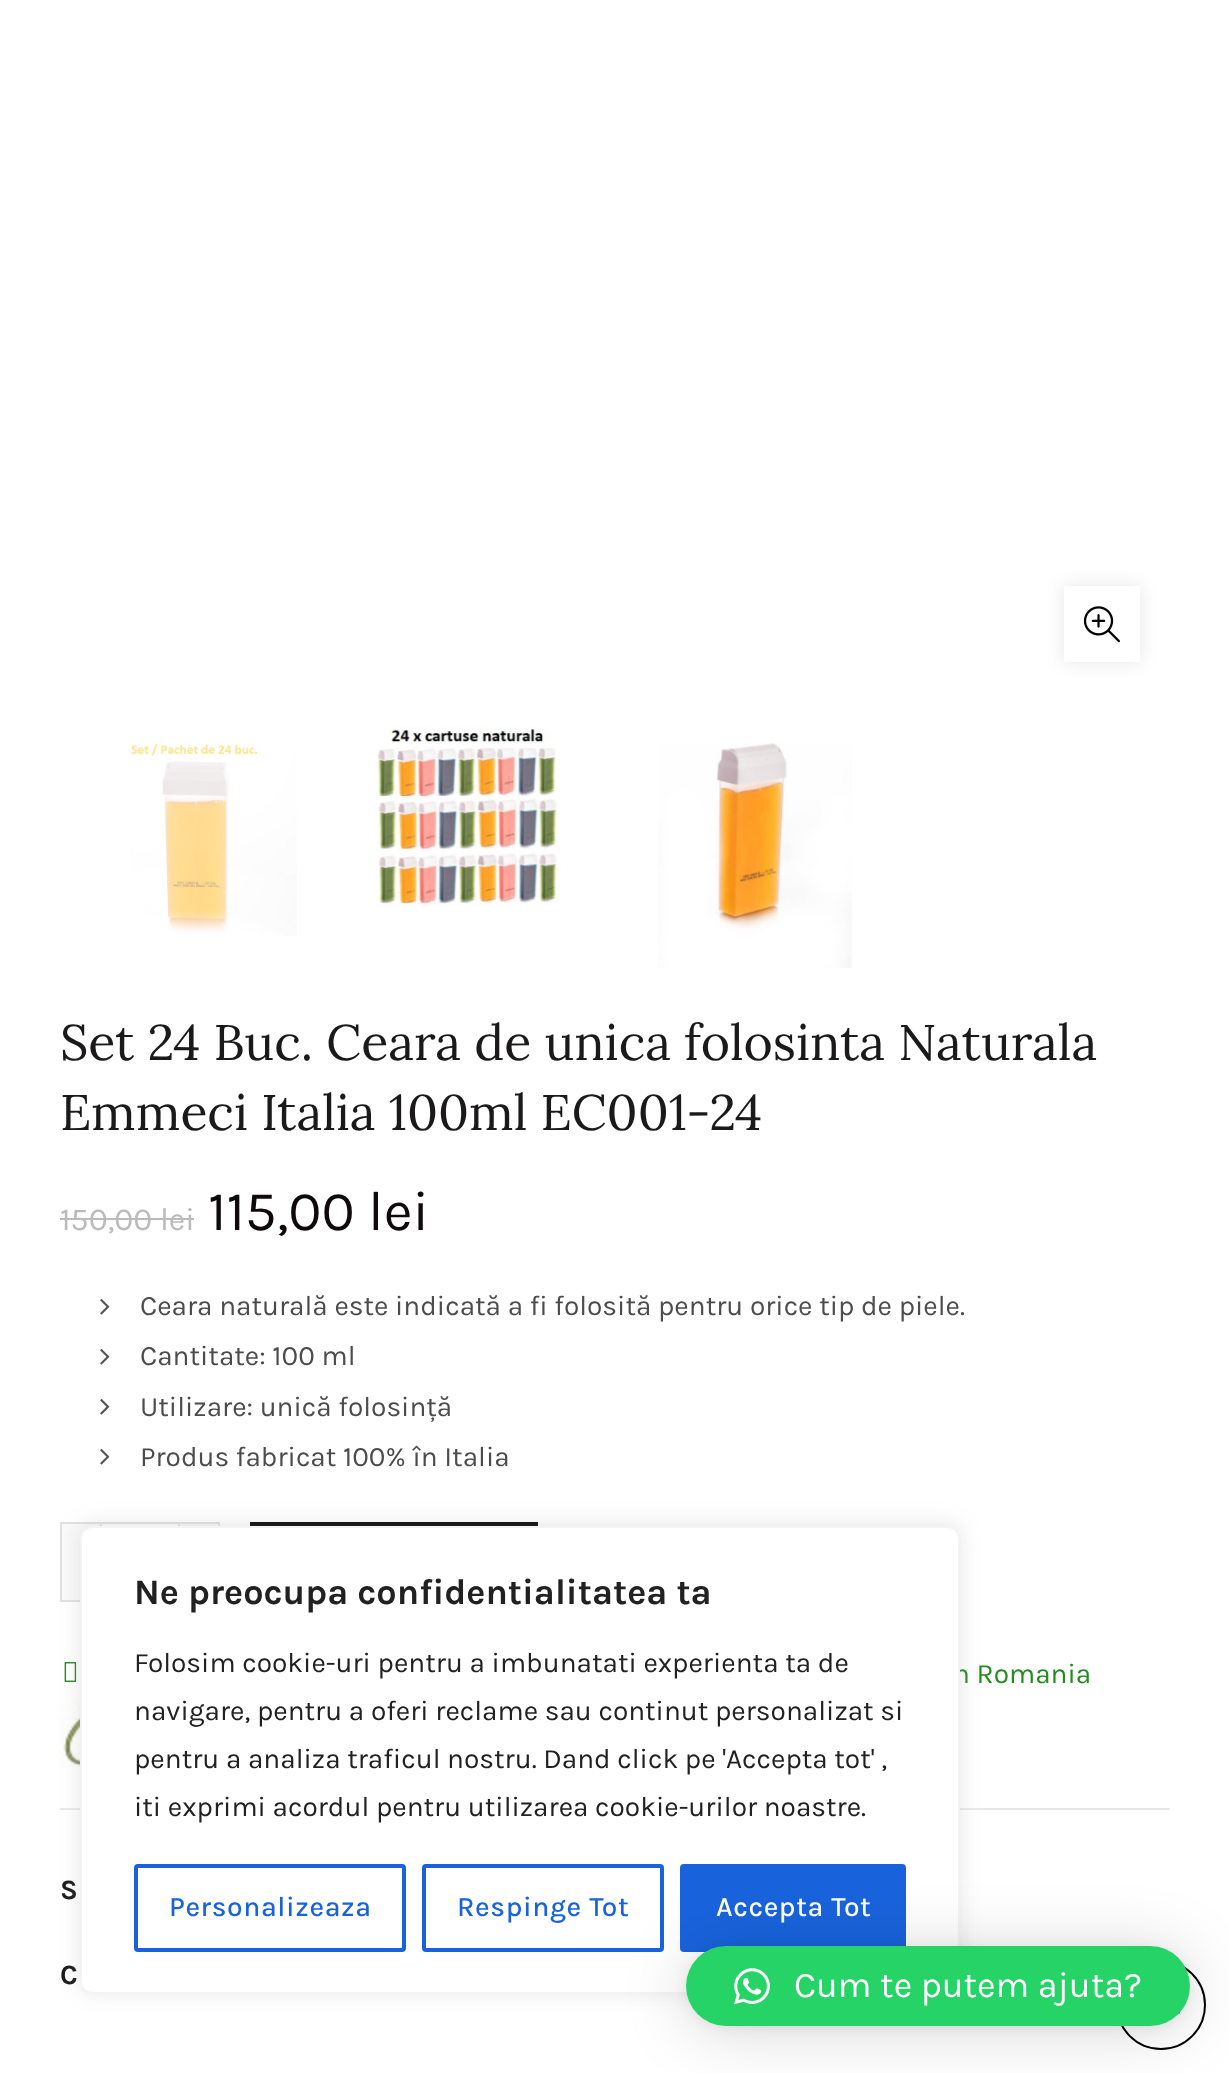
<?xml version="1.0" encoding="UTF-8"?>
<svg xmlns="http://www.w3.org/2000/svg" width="1229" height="2073">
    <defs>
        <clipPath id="clip1"><path d="M 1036 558 H 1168 V 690 H 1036 Z M 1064 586 H 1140 V 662 H 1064 Z" clip-rule="evenodd"/></clipPath>
        <filter id="blur1" x="-50%" y="-200%" width="200%" height="500%"><feGaussianBlur stdDeviation="9"/></filter>
        <filter id="blur2" x="-50%" y="-200%" width="200%" height="500%"><feGaussianBlur stdDeviation="10"/></filter>
        <filter id="blur3" x="-50%" y="-200%" width="200%" height="500%"><feGaussianBlur stdDeviation="32"/></filter>
        <filter id="blur4" x="-50%" y="-200%" width="200%" height="500%"><feGaussianBlur stdDeviation="6"/></filter>
    </defs>
    <rect width="100%" height="100%" fill="#FFFFFF"/>
    <g clip-path="url(#clip1)">
        <rect x="1064" y="586" width="76" height="76" fill="#000000" fill-opacity="0.1" filter="url(#blur1)"/>
    </g>
    <image x="1083" y="606" width="37" height="37" href="img_01.png"/>
    <image x="130" y="742" width="167" height="194" href="img_02.png"/>
    <image x="374" y="727" width="187" height="180" href="img_03.png"/>
    <image x="658" y="743" width="194" height="225" href="img_04.png"/>
    <text font-family="Lora" font-size="50" fill="#1B1919">
        <tspan x="60" y="1060">Set 24 Buc. Ceara de unica folosinta Naturala</tspan>
        <tspan x="60" y="1130">Emmeci Italia 100ml EC001-24</tspan>
    </text>
    <text x="60" y="1230" font-family="Karla" font-size="32" fill="#BBBBBB">150,00 lei</text>
    <rect x="60" y="1218" width="134" height="2" fill="#BBBBBB"/>
    <text x="208" y="1230" font-family="Karla" font-size="56" fill="#0F090B">115,00 lei</text>
    <image x="100" y="1299" width="10" height="16" href="img_05.png"/>
    <text x="140" y="1315" font-family="Karla" font-size="28" fill="#4C4C4C">Ceara naturală este indicată a fi folosită pentru orice tip de piele.</text>
    <image x="100" y="1349" width="10" height="16" href="img_05.png"/>
    <text x="140" y="1365" font-family="Karla" font-size="28" fill="#4C4C4C">Cantitate: 100 ml</text>
    <image x="100" y="1399" width="10" height="16" href="img_05.png"/>
    <text x="140" y="1416" font-family="Karla" font-size="28" fill="#4C4C4C">Utilizare: unică folosință</text>
    <image x="100" y="1449" width="10" height="16" href="img_05.png"/>
    <text x="140" y="1466" font-family="Karla" font-size="28" fill="#4C4C4C">Produs fabricat 100% în Italia</text>
    <rect x="62" y="1524" width="38" height="76" fill="#F9F9F9"/>
    <rect x="60" y="1522" width="40" height="2" fill="#E0E0E0"/>
    <rect x="60" y="1600" width="20" height="2" fill="#E0E0E0"/>
    <rect x="60" y="1522" width="2" height="80" fill="#E0E0E0"/>
    <rect x="101" y="1523" width="78" height="78" fill="none" stroke="#E0E0E0" stroke-width="2"/>
    <rect x="180" y="1524" width="38" height="2" fill="#F9F9F9"/>
    <rect x="180" y="1522" width="40" height="2" fill="#E0E0E0"/>
    <rect x="218" y="1522" width="2" height="4" fill="#E0E0E0"/>
    <rect x="250" y="1522" width="288" height="4" fill="#000000"/>
    <image x="64" y="1662" width="13" height="20" href="img_06.png"/>
    <text x="953" y="1683" font-family="Karla" font-size="28" fill="#228B22">n Romania</text>
    <image x="60" y="1698" width="20" height="70" href="img_07.png"/>
    <rect x="60" y="1808" width="1110" height="2" fill="#E8E8E8"/>
    <text x="60" y="1899" font-family="Karla" font-size="28" font-weight="700" fill="#1B1919">S</text>
    <text x="60" y="1984" font-family="Karla" font-size="28" font-weight="700" fill="#1B1919">C</text>
    <rect x="80" y="1524" width="880" height="468" rx="12" fill="#ACABAB" fill-opacity="0.3" filter="url(#blur2)"/>
    <rect x="81" y="1527" width="878" height="466" rx="11" fill="#FFFFFF" stroke="#F4F4F4" stroke-width="2"/>
    <text x="134" y="1604" font-family="Karla" font-size="36" font-weight="700" fill="#212121">Ne preocupa confidentialitatea ta</text>
    <text font-family="Karla" font-size="28" fill="#212121">
        <tspan x="134" y="1672">Folosim cookie-uri pentru a imbunatati experienta ta de</tspan>
        <tspan x="134" y="1720">navigare, pentru a oferi reclame sau continut personalizat si</tspan>
        <tspan x="134" y="1768">pentru a analiza traficul nostru. Dand click pe 'Accepta tot' ,</tspan>
        <tspan x="134" y="1816">iti exprimi acordul pentru utilizarea cookie-urilor noastre.</tspan>
    </text>
    <rect x="136" y="1866" width="268" height="84" rx="2" fill="none" stroke="#1863DC" stroke-width="4"/>
    <text x="169" y="1916" font-family="Karla" font-size="28" font-weight="500" letter-spacing="0.6" fill="#1863DC">Personalizeaza</text>
    <rect x="424" y="1866" width="238" height="84" rx="2" fill="none" stroke="#1863DC" stroke-width="4"/>
    <text x="457" y="1916" font-family="Karla" font-size="28" font-weight="500" letter-spacing="0.6" fill="#1863DC">Respinge Tot</text>
    <rect x="682" y="1866" width="222" height="84" rx="2" fill="#1863DC" stroke="#1863DC" stroke-width="4"/>
    <text x="716" y="1916" font-family="Karla" font-size="28" font-weight="500" letter-spacing="0.6" fill="#FFFFFF">Accepta Tot</text>
    <circle cx="1161" cy="2005" r="44" fill="none" stroke="#000000" stroke-width="2"/>
    <image x="1178" y="2012" width="2" height="2" href="img_09.png"/>
    <rect x="686" y="1950" width="504" height="80" rx="40" fill="#000000" fill-opacity="0.16" filter="url(#blur3)"/>
    <rect x="686" y="1948" width="504" height="80" rx="40" fill="#000000" fill-opacity="0.06" filter="url(#blur4)"/>
    <rect x="686" y="1946" width="504" height="80" rx="40" fill="#25D366"/>
    <image x="734" y="1968" width="36" height="37" href="img_08.png"/>
    <text x="794" y="1997" font-family="Karla" font-size="36" fill="#FFFFFF">Cum te putem ajuta?</text>
</svg>
